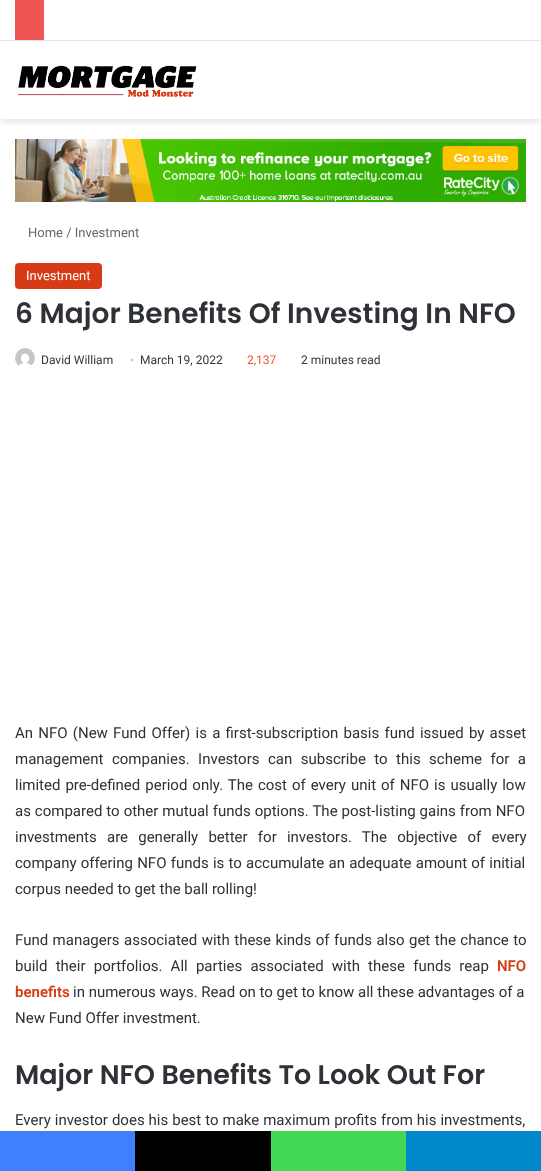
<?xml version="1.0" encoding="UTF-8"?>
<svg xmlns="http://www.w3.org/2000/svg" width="541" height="1171">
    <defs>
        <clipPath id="clip1"><rect x="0" y="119" width="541" height="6"/></clipPath>
        <filter id="blur1" x="-50%" y="-200%" width="200%" height="500%"><feGaussianBlur stdDeviation="3.5"/></filter>
    </defs>
    <rect width="100%" height="100%" fill="#FFFFFF"/>
    <g clip-path="url(#clip1)">
        <rect x="0" y="44" width="541" height="78" fill="#000000" fill-opacity="0.1" filter="url(#blur1)"/>
    </g>
    <rect x="0" y="40" width="541" height="1" fill="#E6E6E6"/>
    <rect x="15" y="0" width="29" height="40" fill="#F05555"/>
    <image x="18" y="65" width="179" height="32" href="img_01.png"/>
    <image x="15" y="139" width="511" height="63" href="img_02.png"/>
    <text x="28" y="237" font-family="Roboto" font-size="13" fill="#686868">Home / Investment</text>
    <rect x="15" y="263" width="87" height="26" rx="4" fill="#D73B16"/>
    <text x="26" y="280" font-family="Roboto" font-size="13" fill="#FFFFFF">Investment</text>
    <text x="15" y="323" font-family="Poppins" font-size="28" font-weight="600" fill="#2E3136">6 Major Benefits Of Investing In NFO</text>
    <image x="15" y="348" width="20" height="18" href="img_03.png"/>
    <text x="41" y="364" font-family="Roboto" font-size="12" fill="#353535">David William</text>
    <text x="130" y="364" font-family="Liberation Serif" font-size="12" fill="#CDCDCD">•</text>
    <text x="140" y="364" font-family="Roboto" font-size="12" fill="#353535">March 19, 2022</text>
    <text x="247" y="364" font-family="Roboto" font-size="12" fill="#F3522C">2,137</text>
    <text x="301" y="364" font-family="Roboto" font-size="12" fill="#353535">2 minutes read</text>
    <text font-family="Roboto" font-size="15" fill="#2E3136">
        <tspan x="15" y="738" word-spacing="1.5">An NFO (New Fund Offer) is a first-subscription basis fund issued by asset</tspan>
        <tspan x="15" y="764" word-spacing="4.75">management companies. Investors can subscribe to this scheme for a</tspan>
        <tspan x="15" y="790" word-spacing="1.25">limited pre-defined period only. The cost of every unit of NFO is usually low</tspan>
        <tspan x="15" y="816" word-spacing="0.25">as compared to other mutual funds options. The post-listing gains from NFO</tspan>
        <tspan x="15" y="842" word-spacing="6.5">investments are generally better for investors. The objective of every</tspan>
        <tspan x="15" y="868" word-spacing="0.5">company offering NFO funds is to accumulate an adequate amount of initial</tspan>
        <tspan x="15" y="894">corpus needed to get the ball rolling!</tspan>
    </text>
    <text font-family="Roboto" font-size="15" fill="#2E3136">
        <tspan x="15" y="945" word-spacing="0.75">Fund managers associated with these kinds of funds also get the chance to</tspan>
        <tspan x="15" y="971" word-spacing="4.5">build their portfolios. All parties associated with these funds reap</tspan>
    </text>
    <text x="497" y="971" font-family="Roboto" font-size="15" font-weight="600" fill="#D73B16">NFO</text>
    <text x="15" y="997" font-family="Roboto" font-size="15" font-weight="600" fill="#D73B16">benefits</text>
    <text x="73" y="997" font-family="Roboto" font-size="15" fill="#2E3136">in numerous ways. Read on to get to know all these advantages of a</text>
    <text x="15" y="1023" font-family="Roboto" font-size="15" fill="#2E3136">New Fund Offer investment.</text>
    <text x="15" y="1084" font-family="Poppins" font-size="27" font-weight="600" fill="#2E3136">Major NFO Benefits To Look Out For</text>
    <text x="15" y="1125" word-spacing="0.25" font-family="Roboto" font-size="15" fill="#2E3136">Every investor does his best to make maximum profits from his investments,</text>
    <rect x="0" y="1131" width="135" height="40" fill="#4080FF"/>
    <rect x="135" y="1131" width="136" height="40" fill="#000000"/>
    <rect x="271" y="1131" width="135" height="40" fill="#43D854"/>
    <rect x="406" y="1131" width="135" height="40" fill="#0088CC"/>
</svg>
